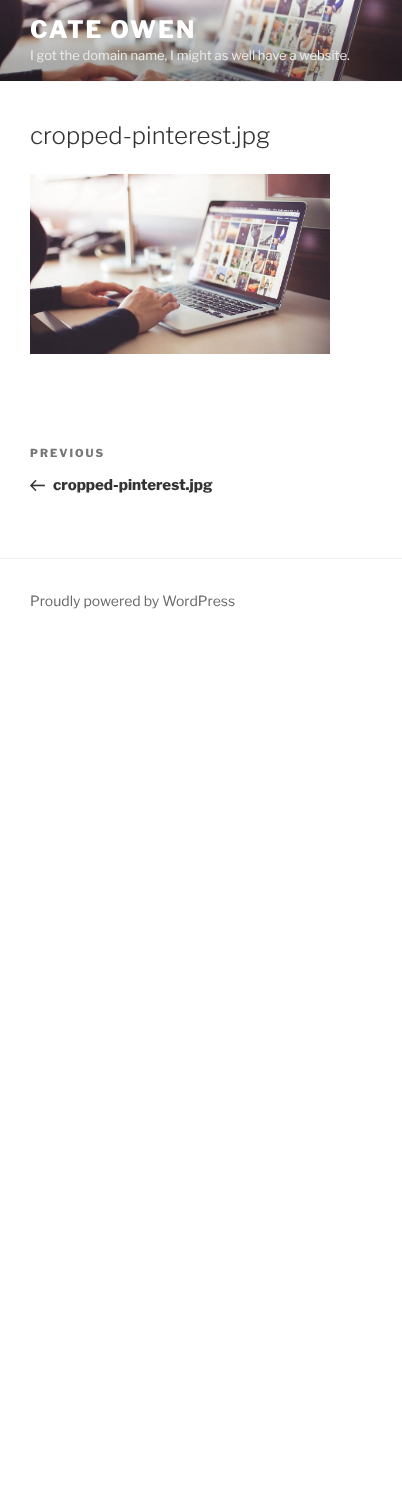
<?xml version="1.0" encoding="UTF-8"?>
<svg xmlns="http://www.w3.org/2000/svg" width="402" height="1500">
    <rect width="100%" height="100%" fill="#FFFFFF"/>
    <rect x="0" y="81" width="402" height="1" fill="#FAFAFA"/>
    <image x="0" y="0" width="402" height="81" href="img_01.png"/>
    <text x="30" y="38" font-family="Libre Franklin" font-size="24" font-weight="800" letter-spacing="2" fill="#FFFFFF">CATE OWEN</text>
    <text x="30" y="60" font-family="Libre Franklin" font-size="13" fill="#ECEBEA">I got the domain name, I might as well have a website.</text>
    <text x="30" y="144" font-family="Libre Franklin" font-size="24" font-weight="300" fill="#333333">cropped-pinterest.jpg</text>
    <image x="30" y="174" width="300" height="180" href="img_02.png"/>
    <text x="30" y="457" font-family="Libre Franklin" font-size="11" font-weight="800" letter-spacing="2" fill="#767676">PREVIOUS</text>
    <image x="30" y="480" width="15" height="11" href="img_03.png"/>
    <text x="53" y="490" font-family="Libre Franklin" font-size="15" font-weight="800" fill="#333333">cropped-pinterest.jpg</text>
    <rect x="0" y="558" width="402" height="1" fill="#EEEEEE"/>
    <text x="30" y="606" font-family="Libre Franklin" font-size="14" fill="#666666">Proudly powered by WordPress</text>
</svg>
